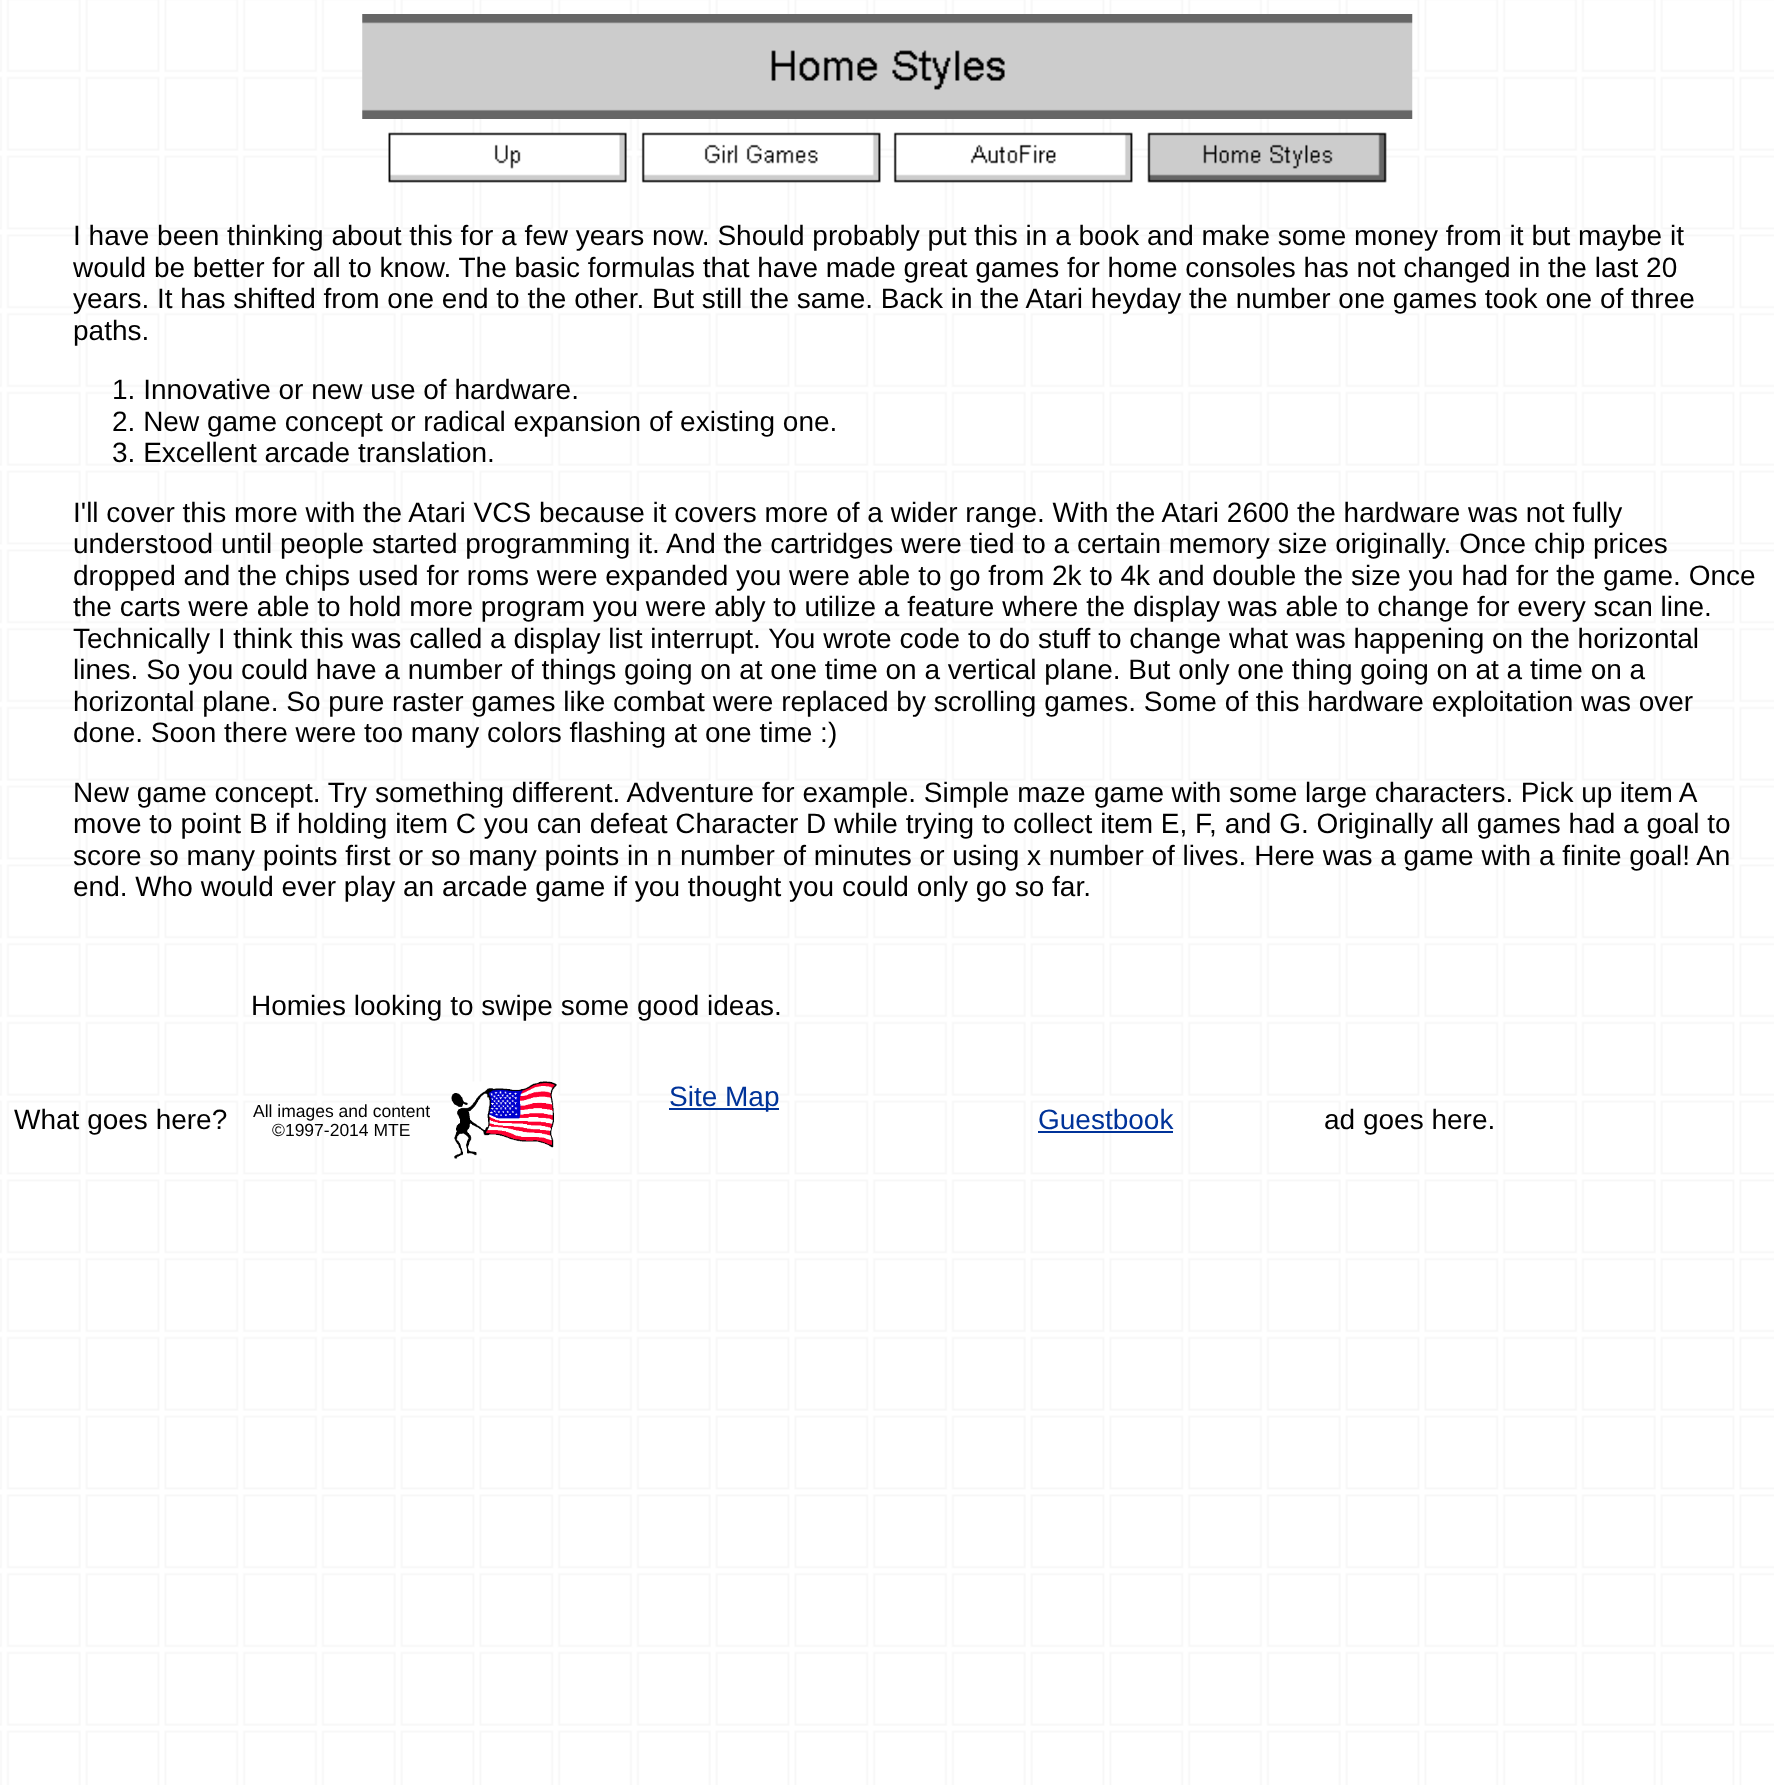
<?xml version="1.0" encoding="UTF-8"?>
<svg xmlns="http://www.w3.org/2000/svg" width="1774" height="1785">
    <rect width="100%" height="100%" fill="#FFFFFF"/>
    <image x="0" y="0" width="1774" height="1785" href="img_01.png"/>
    <image x="362" y="14" width="1051" height="105" href="img_02.png"/>
    <image x="388" y="132" width="239" height="51" href="img_03.png"/>
    <image x="641" y="132" width="240" height="51" href="img_04.png"/>
    <image x="893" y="132" width="240" height="51" href="img_05.png"/>
    <image x="1147" y="132" width="240" height="51" href="img_06.png"/>
    <text font-family="Liberation Sans" font-size="28" fill="#000000">
        <tspan x="73" y="245">I have been thinking about this for a few years now. Should probably put this in a book and make some money from it but maybe it</tspan>
        <tspan x="73" y="277">would be better for all to know. The basic formulas that have made great games for home consoles has not changed in the last 20</tspan>
        <tspan x="73" y="308">years. It has shifted from one end to the other. But still the same. Back in the Atari heyday the number one games took one of three</tspan>
        <tspan x="73" y="340">paths.</tspan>
    </text>
    <text font-family="Liberation Sans" font-size="28" fill="#000000">
        <tspan x="112" y="399">1. Innovative or new use of hardware.</tspan>
        <tspan x="112" y="431">2. New game concept or radical expansion of existing one.</tspan>
        <tspan x="112" y="462">3. Excellent arcade translation.</tspan>
    </text>
    <text font-family="Liberation Sans" font-size="28" fill="#000000">
        <tspan x="73" y="522">I'll cover this more with the Atari VCS because it covers more of a wider range. With the Atari 2600 the hardware was not fully</tspan>
        <tspan x="73" y="553">understood until people started programming it. And the cartridges were tied to a certain memory size originally. Once chip prices</tspan>
        <tspan x="73" y="585">dropped and the chips used for roms were expanded you were able to go from 2k to 4k and double the size you had for the game. Once</tspan>
        <tspan x="73" y="616">the carts were able to hold more program you were ably to utilize a feature where the display was able to change for every scan line.</tspan>
        <tspan x="73" y="648">Technically I think this was called a display list interrupt. You wrote code to do stuff to change what was happening on the horizontal</tspan>
        <tspan x="73" y="679">lines. So you could have a number of things going on at one time on a vertical plane. But only one thing going on at a time on a</tspan>
        <tspan x="73" y="711">horizontal plane. So pure raster games like combat were replaced by scrolling games. Some of this hardware exploitation was over</tspan>
        <tspan x="73" y="742">done. Soon there were too many colors flashing at one time :)</tspan>
    </text>
    <text x="73" y="802" font-family="Liberation Sans" font-size="28" fill="#000000">New game concept. Try something different. Adventure for example. Simple maze</text>
    <text x="1094" y="802" word-spacing="-0.25" font-family="Liberation Sans" font-size="28" fill="#000000">game with some large characters. Pick up item A</text>
    <text font-family="Liberation Sans" font-size="28" fill="#000000">
        <tspan x="73" y="833">move to point B if holding item C you can defeat Character D while trying to collect item E, F, and G. Originally all games had a goal to</tspan>
        <tspan x="73" y="865">score so many points first or so many points in n number of minutes or using x number of lives. Here was a game with a finite goal! An</tspan>
        <tspan x="73" y="896">end. Who would ever play an arcade game if you thought you could only go so far.</tspan>
    </text>
    <text x="251" y="1015" font-family="Liberation Sans" font-size="28" fill="#000000">Homies looking to swipe some good ideas.</text>
    <image x="451" y="1081" width="106" height="78" href="img_07.png"/>
    <rect x="669" y="1108" width="110" height="2" fill="#003399"/>
    <text x="669" y="1106" font-family="Liberation Sans" font-size="28" fill="#003399">Site Map</text>
    <text x="14" y="1129" font-family="Liberation Sans" font-size="28" fill="#000000">What goes here?</text>
    <text x="253" y="1117" font-family="Liberation Sans" font-size="17.5" fill="#000000">All images and content</text>
    <text x="272" y="1136" font-family="Liberation Sans" font-size="17.5" fill="#000000">©1997-2014 MTE</text>
    <text x="1038" y="1129" font-family="Liberation Sans" font-size="28" fill="#003399">Guestbook</text>
    <rect x="1038" y="1131" width="135" height="2" fill="#003399"/>
    <text x="1324" y="1129" font-family="Liberation Sans" font-size="28" fill="#000000">ad goes here.</text>
</svg>
